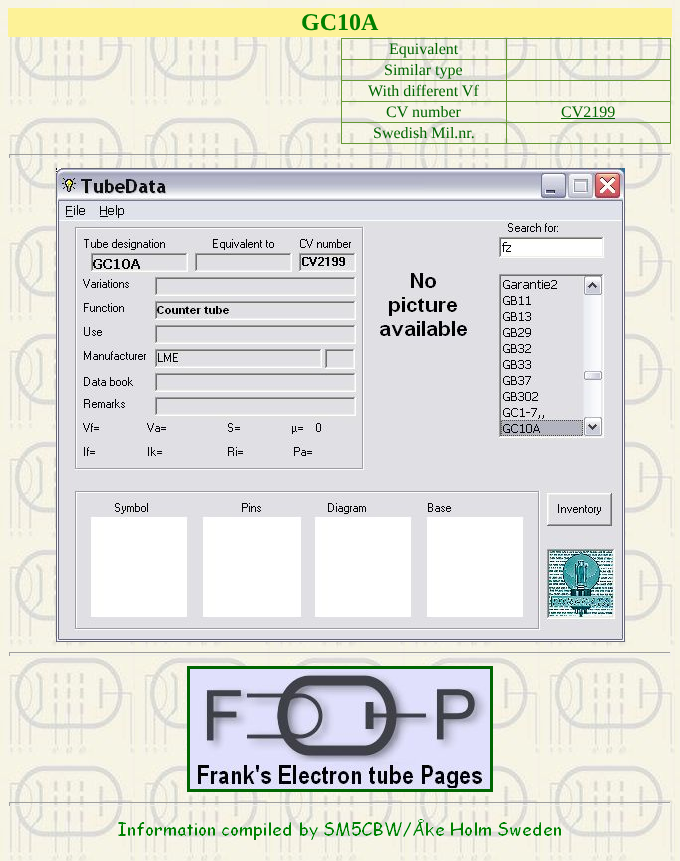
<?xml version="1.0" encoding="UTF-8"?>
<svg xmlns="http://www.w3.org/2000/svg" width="680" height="861">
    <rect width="100%" height="100%" fill="#FFFFFF"/>
    <image x="0" y="0" width="680" height="861" href="img_01.png"/>
    <rect x="8" y="8" width="664" height="29" fill="#FDF297"/>
    <text x="301" y="30" font-family="Liberation Serif" font-size="24" font-weight="700" fill="#008000">GC10A</text>
    <rect x="341" y="38" width="330" height="1" fill="#669933"/>
    <rect x="670" y="38" width="1" height="106" fill="#669933"/>
    <rect x="341" y="143" width="330" height="1" fill="#669933"/>
    <rect x="341" y="38" width="1" height="106" fill="#669933"/>
    <text x="389" y="54" font-family="Liberation Serif" font-size="16" fill="#006600">Equivalent</text>
    <rect x="506" y="59" width="165" height="1" fill="#669933"/>
    <rect x="506" y="80" width="165" height="1" fill="#669933"/>
    <rect x="506" y="101" width="165" height="1" fill="#669933"/>
    <rect x="506" y="122" width="165" height="1" fill="#669933"/>
    <rect x="506" y="122" width="1" height="22" fill="#669933"/>
    <rect x="341" y="122" width="166" height="1" fill="#669933"/>
    <rect x="506" y="101" width="1" height="22" fill="#669933"/>
    <rect x="341" y="101" width="166" height="1" fill="#669933"/>
    <rect x="506" y="80" width="1" height="22" fill="#669933"/>
    <rect x="341" y="80" width="166" height="1" fill="#669933"/>
    <rect x="506" y="59" width="1" height="22" fill="#669933"/>
    <rect x="341" y="59" width="166" height="1" fill="#669933"/>
    <rect x="506" y="38" width="1" height="22" fill="#669933"/>
    <text x="384" y="75" font-family="Liberation Serif" font-size="16" fill="#006600">Similar type</text>
    <text x="368" y="96" font-family="Liberation Serif" font-size="16" fill="#006600">With different Vf</text>
    <text x="386" y="117" font-family="Liberation Serif" font-size="16" fill="#006600">CV number</text>
    <text x="561" y="117" font-family="Liberation Serif" font-size="16" fill="#006600">CV2199</text>
    <rect x="561" y="118" width="54" height="1" fill="#006600"/>
    <text x="373" y="138" font-family="Liberation Serif" font-size="16" fill="#006600">Swedish Mil.nr.</text>
    <rect x="9" y="154" width="662" height="1" fill="#9F9F9F"/>
    <rect x="670" y="154" width="1" height="4" fill="#EEEEEE"/>
    <rect x="9" y="157" width="662" height="1" fill="#EEEEEE"/>
    <rect x="9" y="154" width="1" height="4" fill="#9F9F9F"/>
    <image x="56" y="168" width="569" height="474" href="img_02.png"/>
    <rect x="9" y="652" width="662" height="1" fill="#9F9F9F"/>
    <rect x="670" y="652" width="1" height="4" fill="#EEEEEE"/>
    <rect x="9" y="655" width="662" height="1" fill="#EEEEEE"/>
    <rect x="9" y="652" width="1" height="4" fill="#9F9F9F"/>
    <rect x="188.5" y="667.5" width="303" height="123" fill="none" stroke="#006600" stroke-width="3"/>
    <image x="190" y="669" width="300" height="120" href="img_03.png"/>
    <rect x="9" y="802" width="662" height="1" fill="#9F9F9F"/>
    <rect x="670" y="802" width="1" height="4" fill="#EEEEEE"/>
    <rect x="9" y="805" width="662" height="1" fill="#EEEEEE"/>
    <rect x="9" y="802" width="1" height="4" fill="#9F9F9F"/>
    <image x="118" y="819" width="443" height="21" href="img_04.png"/>
</svg>
